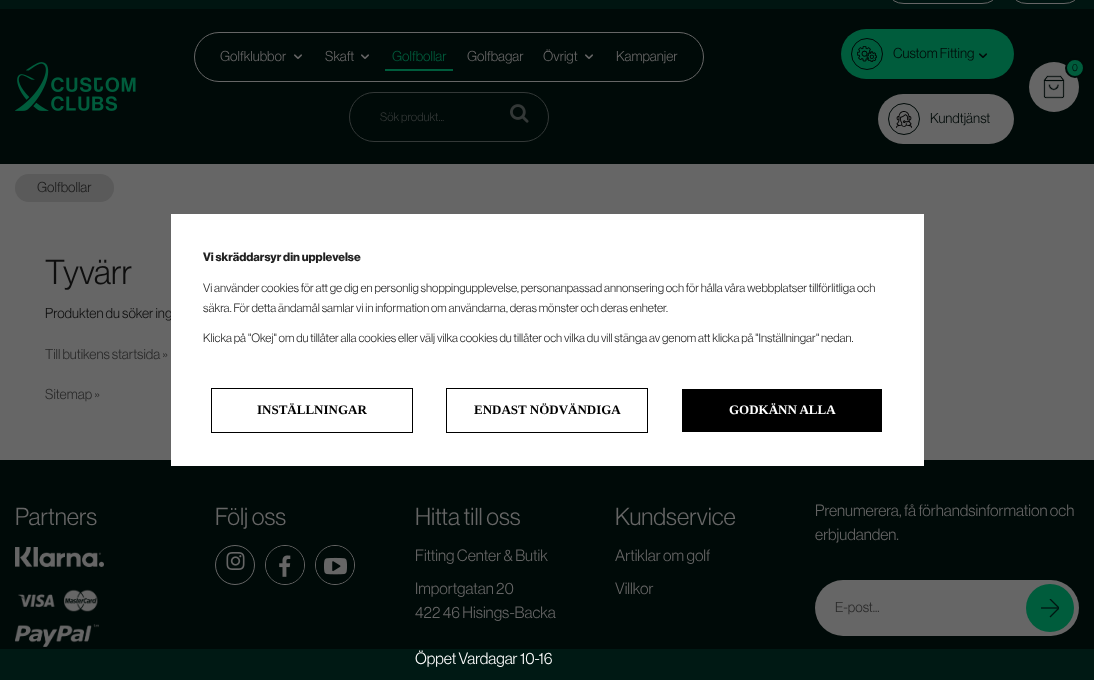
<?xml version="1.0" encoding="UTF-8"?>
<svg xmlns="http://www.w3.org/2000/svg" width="1094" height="680">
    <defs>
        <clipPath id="clip1"><rect x="1041" y="599" width="18" height="19"/></clipPath>
    </defs>
    <rect width="100%" height="100%" fill="#666666"/>
    <rect x="0" y="0" width="1094" height="9" fill="#001511"/>
    <rect x="889.5" y="-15.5" width="107" height="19" rx="14.5" fill="none" stroke="#666666"/>
    <rect x="1012.5" y="-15.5" width="66" height="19" rx="14.5" fill="none" stroke="#666666"/>
    <rect x="0" y="9" width="1094" height="155" fill="#000A08"/>
    <image x="15" y="62" width="121" height="49" href="img_01.png"/>
    <rect x="194.5" y="32.5" width="509" height="49" rx="24.5" fill="none" stroke="#666666"/>
    <text x="220" y="61" font-family="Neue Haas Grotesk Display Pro" font-size="14" font-weight="300" fill="#666666">Golfklubbor</text>
    <image x="294" y="54" width="8" height="5" href="img_02.png"/>
    <text x="325" y="61" font-family="Neue Haas Grotesk Display Pro" font-size="14" font-weight="300" fill="#666666">Skaft</text>
    <image x="361" y="54" width="8" height="5" href="img_02.png"/>
    <text x="392" y="61" font-family="Neue Haas Grotesk Display Pro" font-size="14" font-weight="300" fill="#005C3C">Golfbollar</text>
    <rect x="385" y="69" width="68" height="2" fill="#005C3C"/>
    <text x="467" y="61" font-family="Neue Haas Grotesk Display Pro" font-size="14" font-weight="300" fill="#666666">Golfbagar</text>
    <text x="543" y="61" font-family="Neue Haas Grotesk Display Pro" font-size="14" font-weight="300" fill="#666666">Övrigt</text>
    <image x="585" y="54" width="8" height="5" href="img_02.png"/>
    <text x="616" y="61" font-family="Neue Haas Grotesk Display Pro" font-size="14" font-weight="300" fill="#666666">Kampanjer</text>
    <rect x="349.5" y="92.5" width="199" height="49" rx="24.5" fill="none" stroke="#333837"/>
    <text x="380" y="121" font-family="Neue Haas Grotesk Display Pro" font-size="12" font-weight="300" fill="#333837">Sök produkt...</text>
    <image x="510" y="104" width="19" height="19" href="img_03.png"/>
    <rect x="841" y="29" width="173" height="50" rx="25" fill="#005C3C"/>
    <image x="857" y="46" width="20" height="16" href="img_04.png"/>
    <circle cx="867" cy="54" r="15.5" fill="none" stroke="#000A08"/>
    <text x="893" y="58" font-family="Neue Haas Grotesk Display Pro" font-size="14" font-weight="300" fill="#000A08">Custom Fitting</text>
    <image x="979" y="53" width="8" height="5" href="img_05.png"/>
    <rect x="878" y="94" width="136" height="50" rx="25" fill="#666666"/>
    <image x="896" y="111" width="16" height="17" href="img_06.png"/>
    <circle cx="904" cy="119" r="15.5" fill="none" stroke="#000A08"/>
    <text x="930" y="123" font-family="Neue Haas Grotesk Display Pro" font-size="14" font-weight="300" fill="#000A08">Kundtjänst</text>
    <circle cx="1054" cy="87" r="25" fill="#666666"/>
    <circle cx="1075" cy="68" r="9" fill="#005C3C" stroke="#000A08" stroke-width="2"/>
    <text x="1072" y="71" font-family="Neue Haas Grotesk Display Pro" font-size="10" font-weight="300" fill="#000A08">0</text>
    <image x="1043" y="75" width="22" height="24" href="img_07.png"/>
    <rect x="15" y="174" width="99" height="28" rx="14" fill="#5A5A5A"/>
    <text x="37" y="192" font-family="Neue Haas Grotesk Display Pro" font-size="14" font-weight="300" fill="#1B1B1B">Golfbollar</text>
    <text x="45" y="284" font-family="Neue Haas Grotesk Display Pro" font-size="34" font-weight="300" fill="#0E0E0E">Tyvärr</text>
    <text x="45" y="318" font-family="Neue Haas Grotesk Display Pro" font-size="14" font-weight="300" fill="#0E0E0E">Produkten du söker ing</text>
    <text x="45" y="359" font-family="Neue Haas Grotesk Display Pro" font-size="14" font-weight="300" fill="#292929">Till butikens startsida »</text>
    <text x="45" y="399" font-family="Neue Haas Grotesk Display Pro" font-size="14" font-weight="300" fill="#292929">Sitemap »</text>
    <rect x="0" y="649" width="1094" height="31" fill="#001914"/>
    <rect x="0" y="460" width="1094" height="189" fill="#000A08"/>
    <text x="15" y="525" font-family="Neue Haas Grotesk Display Pro" font-size="24" font-weight="300" fill="#666666">Partners</text>
    <image x="15" y="547" width="89" height="20" href="img_08.png"/>
    <image x="18" y="589" width="80" height="23" href="img_09.png"/>
    <image x="15" y="624" width="84" height="23" href="img_10.png"/>
    <text x="215" y="525" font-family="Neue Haas Grotesk Display Pro" font-size="24" font-weight="300" fill="#666666">Följ oss</text>
    <circle cx="235" cy="565" r="19.5" fill="none" stroke="#666666"/>
    <image x="226" y="552" width="19" height="18" href="img_11.png"/>
    <circle cx="285" cy="565" r="19.5" fill="none" stroke="#666666"/>
    <circle cx="285" cy="565" r="19" fill="#000A08"/>
    <image x="279" y="555" width="12" height="22" href="img_12.png"/>
    <circle cx="335" cy="565" r="19.5" fill="none" stroke="#666666"/>
    <circle cx="335" cy="565" r="19" fill="#000A08"/>
    <image x="324" y="557" width="23" height="18" href="img_13.png"/>
    <text x="415" y="525" font-family="Neue Haas Grotesk Display Pro" font-size="24" font-weight="300" fill="#666666">Hitta till oss</text>
    <text x="415" y="561" font-family="Neue Haas Grotesk Display Pro" font-size="16" font-weight="300" fill="#666666">Fitting Center &amp; Butik</text>
    <text font-family="Neue Haas Grotesk Display Pro" font-size="16" font-weight="300" fill="#666666">
        <tspan x="415" y="594">Importgatan 20</tspan>
        <tspan x="415" y="618">422 46 Hisings-Backa</tspan>
    </text>
    <text x="415" y="664" font-family="Neue Haas Grotesk Display Pro" font-size="16" font-weight="300" fill="#FFFFFF">Öppet Vardagar 10-16</text>
    <text x="615" y="525" font-family="Neue Haas Grotesk Display Pro" font-size="24" font-weight="300" fill="#666666">Kundservice</text>
    <text x="615" y="561" font-family="Neue Haas Grotesk Display Pro" font-size="16" font-weight="300" fill="#666666">Artiklar om golf</text>
    <text x="615" y="594" font-family="Neue Haas Grotesk Display Pro" font-size="16" font-weight="300" fill="#666666">Villkor</text>
    <text font-family="Neue Haas Grotesk Display Pro" font-size="16" font-weight="300" fill="#666666">
        <tspan x="815" y="516">Prenumerera, få förhandsinformation och</tspan>
        <tspan x="815" y="540">erbjudanden.</tspan>
    </text>
    <rect x="815" y="580" width="264" height="56" rx="28" fill="#666666"/>
    <text x="835" y="612" font-family="Neue Haas Grotesk Display Pro" font-size="14" font-weight="300" fill="#292929">E-post...</text>
    <circle cx="1050" cy="608" r="24" fill="#005C3C"/>
    <g clip-path="url(#clip1)">
        <path d="M 1050 617 L 1059 608 L 1050 599" fill="none" stroke="#001511" stroke-width="1.3" stroke-linejoin="round"/>
    </g>
    <path d="M 1059 608 H 1041" fill="none" stroke="#001511" stroke-width="1.3" stroke-linejoin="round"/>
    <rect x="171" y="214" width="753" height="252" fill="#FFFFFF"/>
    <text x="203" y="261" font-family="Neue Haas Grotesk Display Pro" font-size="12" font-weight="700" fill="#222222">Vi skräddarsyr din upplevelse</text>
    <text font-family="Neue Haas Grotesk Display Pro" font-size="12" font-weight="300" fill="#222222">
        <tspan x="203" y="292">Vi använder cookies för att ge dig en personlig shoppingupplevelse, personanpassad annonsering och för hålla våra webbplatser tillförlitliga och</tspan>
        <tspan x="203" y="312">säkra. För detta ändamål samlar vi in information om användarna, deras mönster och deras enheter.</tspan>
    </text>
    <text x="203" y="342" font-family="Neue Haas Grotesk Display Pro" font-size="12" font-weight="300" fill="#222222">Klicka på "Okej" om du tillåter alla cookies eller välj vilka cookies du tillåter och vilka du vill stänga av genom att klicka på "Inställningar" nedan.</text>
    <rect x="211.5" y="388.5" width="201" height="44" fill="none" stroke="#000000"/>
    <text x="257" y="414" font-family="Liberation Serif" font-size="13" font-weight="700" fill="#000000">INSTÄLLNINGAR</text>
    <rect x="446.5" y="388.5" width="201" height="44" fill="none" stroke="#000000"/>
    <text x="474" y="414" font-family="Liberation Serif" font-size="13" font-weight="700" fill="#000000">ENDAST NÖDVÄNDIGA</text>
    <rect x="682" y="389" width="200" height="43" fill="#000000"/>
    <text x="729" y="414" font-family="Liberation Serif" font-size="13" font-weight="700" fill="#FFFFFF">GODKÄNN ALLA</text>
</svg>
